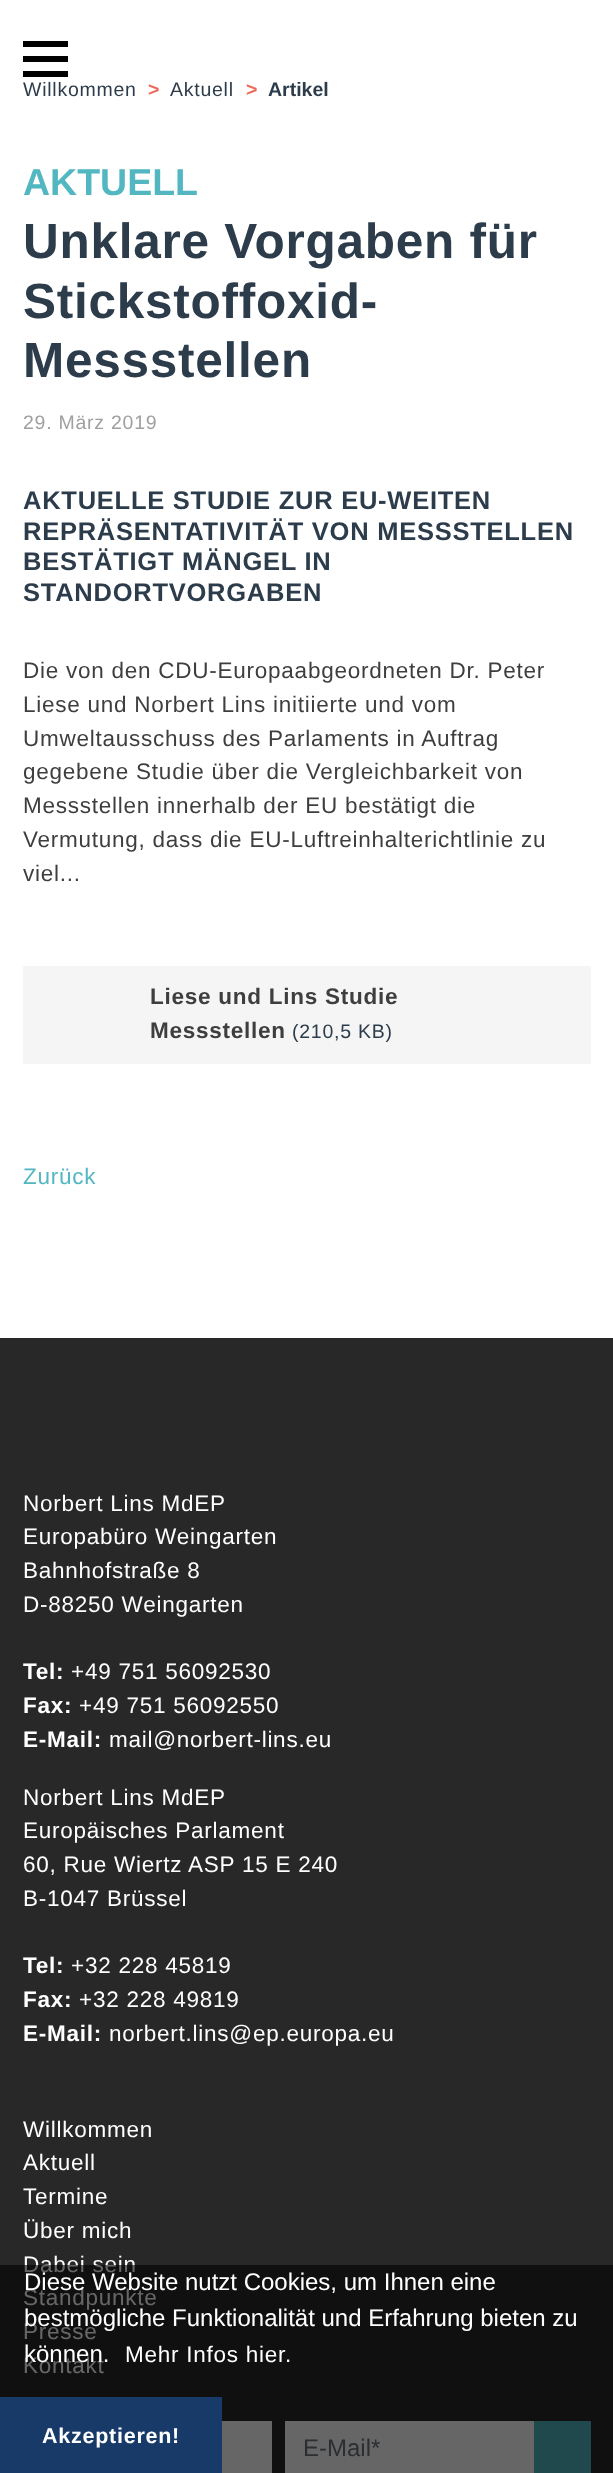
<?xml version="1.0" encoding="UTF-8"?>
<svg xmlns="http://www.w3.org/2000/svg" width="613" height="2473">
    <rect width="100%" height="100%" fill="#FFFFFF"/>
    <rect x="23" y="56" width="45" height="6" fill="#000000"/>
    <rect x="23" y="41" width="45" height="6" fill="#000000"/>
    <rect x="23" y="71" width="45" height="6" fill="#000000"/>
    <text x="23" y="96" font-family="Liberation Sans" font-size="19.5" letter-spacing="0.75" fill="#2D3C4B">Willkommen</text>
    <text x="148" y="96" font-family="Liberation Sans" font-size="19.5" font-weight="700" fill="#ED6A5B">&gt;</text>
    <text x="170" y="96" font-family="Liberation Sans" font-size="19.5" letter-spacing="0.75" fill="#2D3C4B">Aktuell</text>
    <text x="246" y="96" font-family="Liberation Sans" font-size="19.5" font-weight="700" fill="#ED6A5B">&gt;</text>
    <text x="268" y="96" font-family="Liberation Sans" font-size="19.5" font-weight="700" fill="#2D3C4B">Artikel</text>
    <text x="23" y="195" font-family="Liberation Sans" font-size="37.5" font-weight="700" fill="#52B7C1">AKTUELL</text>
    <text font-family="Liberation Sans" font-size="49.5" font-weight="700" letter-spacing="0.75" fill="#2D3C4B">
        <tspan x="23" y="258">Unklare Vorgaben für</tspan>
        <tspan x="23" y="318">Stickstoffoxid-</tspan>
        <tspan x="23" y="377">Messstellen</tspan>
    </text>
    <text x="23" y="429" font-family="Liberation Sans" font-size="19.5" letter-spacing="0.75" fill="#A0A0A0">29. März 2019</text>
    <text font-family="Liberation Sans" font-size="25.5" font-weight="700" letter-spacing="0.75" fill="#2D3C4B">
        <tspan x="23" y="509">AKTUELLE STUDIE ZUR EU-WEITEN</tspan>
        <tspan x="23" y="540">REPRÄSENTATIVITÄT VON MESSSTELLEN</tspan>
        <tspan x="23" y="570">BESTÄTIGT MÄNGEL IN</tspan>
        <tspan x="23" y="601">STANDORTVORGABEN</tspan>
    </text>
    <text font-family="Liberation Sans" font-size="22.5" letter-spacing="0.75" fill="#3E3E3E">
        <tspan x="23" y="678">Die von den CDU-Europaabgeordneten Dr. Peter</tspan>
        <tspan x="23" y="712">Liese und Norbert Lins initiierte und vom</tspan>
        <tspan x="23" y="746">Umweltausschuss des Parlaments in Auftrag</tspan>
        <tspan x="23" y="779">gegebene Studie über die Vergleichbarkeit von</tspan>
        <tspan x="23" y="813">Messstellen innerhalb der EU bestätigt die</tspan>
        <tspan x="23" y="847">Vermutung, dass die EU-Luftreinhalterichtlinie zu</tspan>
        <tspan x="23" y="881">viel...</tspan>
    </text>
    <rect x="23" y="966" width="568" height="98" fill="#F5F5F5"/>
    <text font-family="Liberation Sans" font-size="22.5" font-weight="700" letter-spacing="0.75" fill="#3E3E3E">
        <tspan x="150" y="1004">Liese und Lins Studie</tspan>
        <tspan x="150" y="1038">Messstellen</tspan>
    </text>
    <text x="292" y="1038" font-family="Liberation Sans" font-size="19.5" letter-spacing="0.75" fill="#2D3C4B">(210,5 KB)</text>
    <text x="23" y="1184" font-family="Liberation Sans" font-size="22.5" letter-spacing="0.75" fill="#52B7C1">Zurück</text>
    <rect x="0" y="1338" width="613" height="1135" fill="#282828"/>
    <text font-family="Liberation Sans" font-size="22.5" letter-spacing="0.75" fill="#FFFFFF">
        <tspan x="23" y="1511">Norbert Lins MdEP</tspan>
        <tspan x="23" y="1544">Europabüro Weingarten</tspan>
        <tspan x="23" y="1578">Bahnhofstraße 8</tspan>
        <tspan x="23" y="1612">D-88250 Weingarten</tspan>
    </text>
    <text x="23" y="1679" font-family="Liberation Sans" font-size="22.5" font-weight="700" letter-spacing="0.75" fill="#FFFFFF">Tel:</text>
    <text x="71" y="1679" font-family="Liberation Sans" font-size="22.5" letter-spacing="0.75" fill="#FFFFFF">+49 751 56092530</text>
    <text x="23" y="1713" font-family="Liberation Sans" font-size="22.5" font-weight="700" letter-spacing="0.75" fill="#FFFFFF">Fax:</text>
    <text x="79" y="1713" font-family="Liberation Sans" font-size="22.5" letter-spacing="0.75" fill="#FFFFFF">+49 751 56092550</text>
    <text x="23" y="1747" font-family="Liberation Sans" font-size="22.5" font-weight="700" letter-spacing="0.75" fill="#FFFFFF">E-Mail:</text>
    <text x="109" y="1747" font-family="Liberation Sans" font-size="22.5" letter-spacing="0.75" fill="#FFFFFF">mail@norbert-lins.eu</text>
    <text font-family="Liberation Sans" font-size="22.5" letter-spacing="0.75" fill="#FFFFFF">
        <tspan x="23" y="1805">Norbert Lins MdEP</tspan>
        <tspan x="23" y="1838">Europäisches Parlament</tspan>
        <tspan x="23" y="1872">60, Rue Wiertz ASP 15 E 240</tspan>
        <tspan x="23" y="1906">B-1047 Brüssel</tspan>
    </text>
    <text x="23" y="1973" font-family="Liberation Sans" font-size="22.5" font-weight="700" letter-spacing="0.75" fill="#FFFFFF">Tel:</text>
    <text x="71" y="1973" font-family="Liberation Sans" font-size="22.5" letter-spacing="0.75" fill="#FFFFFF">+32 228 45819</text>
    <text x="23" y="2007" font-family="Liberation Sans" font-size="22.5" font-weight="700" letter-spacing="0.75" fill="#FFFFFF">Fax:</text>
    <text x="79" y="2007" font-family="Liberation Sans" font-size="22.5" letter-spacing="0.75" fill="#FFFFFF">+32 228 49819</text>
    <text x="23" y="2041" font-family="Liberation Sans" font-size="22.5" font-weight="700" letter-spacing="0.75" fill="#FFFFFF">E-Mail:</text>
    <text x="109" y="2041" font-family="Liberation Sans" font-size="22.5" letter-spacing="0.75" fill="#FFFFFF">norbert.lins@ep.europa.eu</text>
    <text font-family="Liberation Sans" font-size="22.5" letter-spacing="0.75" fill="#FFFFFF">
        <tspan x="23" y="2137">Willkommen</tspan>
        <tspan x="23" y="2170">Aktuell</tspan>
        <tspan x="23" y="2204">Termine</tspan>
        <tspan x="23" y="2238">Über mich</tspan>
        <tspan x="23" y="2272">Dabei sein</tspan>
        <tspan x="23" y="2305">Standpunkte</tspan>
        <tspan x="23" y="2339">Presse</tspan>
        <tspan x="23" y="2373">Kontakt</tspan>
    </text>
    <rect x="222" y="2421" width="50" height="52" fill="#FFFFFF"/>
    <rect x="285" y="2421" width="249" height="52" fill="#FFFFFF"/>
    <text x="303" y="2456" font-family="Liberation Sans" font-size="24" fill="#6C757D">E-Mail*</text>
    <rect x="534" y="2421" width="57" height="52" fill="#52B7C1"/>
    <rect x="0" y="2265" width="613" height="208" fill="#000000" fill-opacity="0.6"/>
    <text font-family="Liberation Sans" font-size="24" fill="#FFFFFF">
        <tspan x="24" y="2290">Diese Website nutzt Cookies, um Ihnen eine</tspan>
        <tspan x="24" y="2326">bestmögliche Funktionalität und Erfahrung bieten zu</tspan>
        <tspan x="24" y="2362">können.</tspan>
    </text>
    <text x="125" y="2362" font-family="Liberation Sans" font-size="22.5" letter-spacing="0.75" fill="#FFFFFF">Mehr Infos hier.</text>
    <rect x="0" y="2397" width="222" height="76" fill="#183A68"/>
    <text x="42" y="2443" font-family="Liberation Sans" font-size="21.5" font-weight="700" letter-spacing="0.75" fill="#FFFFFF">Akzeptieren!</text>
</svg>
